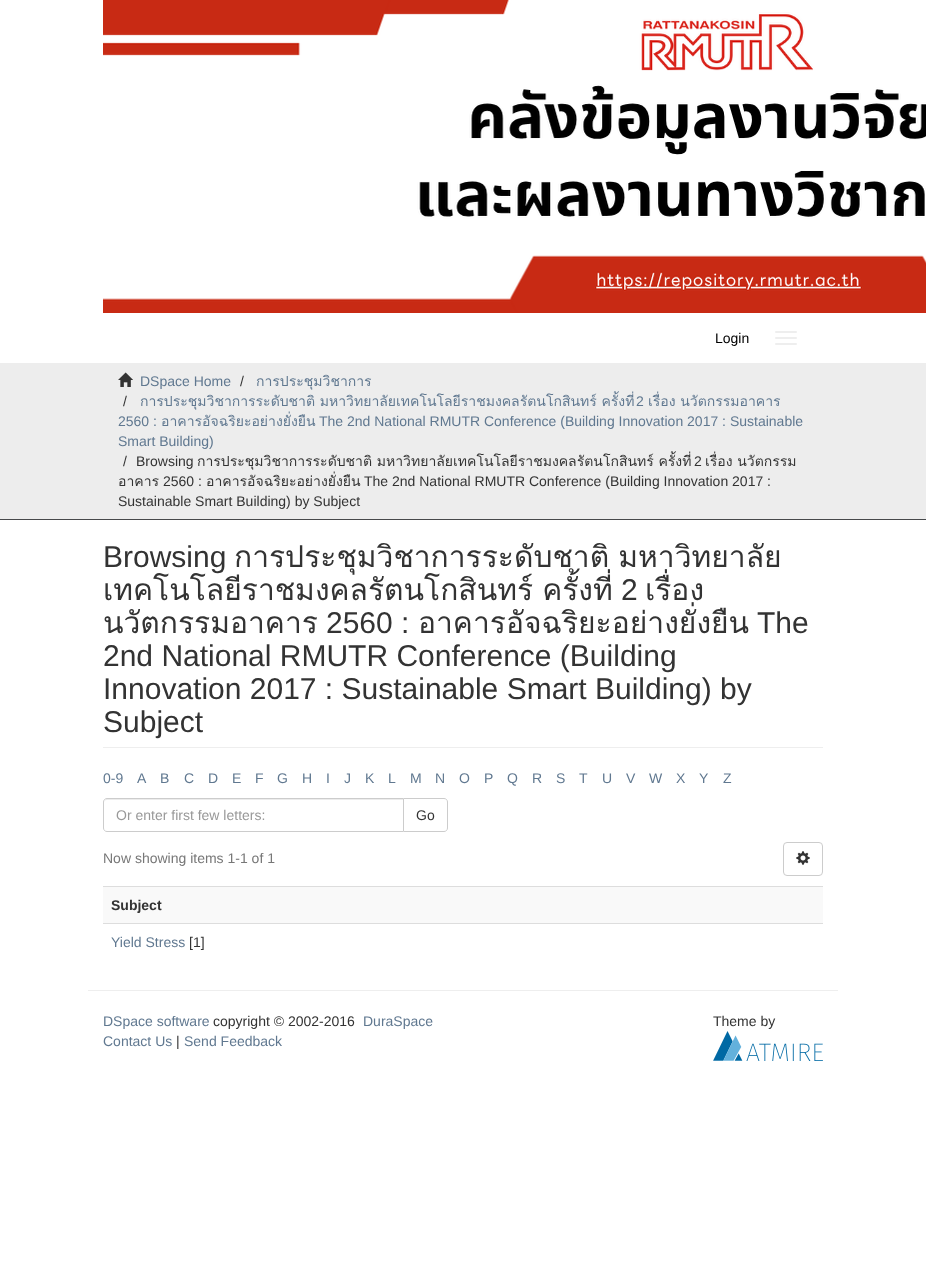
<?xml version="1.0" encoding="UTF-8"?>
<svg xmlns="http://www.w3.org/2000/svg" width="926" height="1281">
    <rect width="100%" height="100%" fill="#FFFFFF"/>
    <image x="103" y="0" width="823" height="313" href="img_01.png"/>
    <text x="715" y="343" font-family="Liberation Sans" font-size="14" fill="#000000">Login</text>
    <rect x="775" y="331" width="22" height="2" rx="1" fill="#EEEEEE"/>
    <rect x="775" y="337" width="22" height="2" rx="1" fill="#EEEEEE"/>
    <rect x="775" y="343" width="22" height="2" rx="1" fill="#EEEEEE"/>
    <rect x="0" y="363" width="926" height="156" fill="#EDEDED"/>
    <rect x="0" y="519" width="926" height="1" fill="#47494B"/>
    <image x="118" y="372" width="15" height="15" href="img_02.png"/>
    <text x="140" y="386" font-family="Liberation Sans" font-size="14" fill="#607890">DSpace Home</text>
    <text x="240" y="386" font-family="Liberation Sans" font-size="14" fill="#333333">/</text>
    <text x="256" y="386" font-family="Loma" font-size="14" fill="#607890">การประชุมวิชาการ</text>
    <text x="123" y="406" font-family="Liberation Sans" font-size="14" fill="#333333">/</text>
    <text x="140" y="406" font-family="Loma" font-size="14" fill="#607890">การประชุมวิชาการระดับชาติ มหาวิทยาลัยเทคโนโลยีราชมงคลรัตนโกสินทร์ ครั้งที่</text>
    <text x="636" y="406" font-family="Liberation Sans" font-size="14" fill="#607890">2</text>
    <text x="648" y="406" font-family="Loma" font-size="14" fill="#607890">เรื่อง นวัตกรรมอาคาร</text>
    <text x="118" y="426" font-family="Liberation Sans" font-size="14" fill="#607890">2560 :</text>
    <text x="161" y="426" font-family="Loma" font-size="14" fill="#607890">อาคารอัจฉริยะอย่างยั่งยืน</text>
    <text x="319" y="426" font-family="Liberation Sans" font-size="14" fill="#607890">The 2nd National RMUTR Conference (Building Innovation 2017 : Sustainable</text>
    <text x="118" y="446" font-family="Liberation Sans" font-size="14" fill="#607890">Smart Building)</text>
    <text x="123" y="466" font-family="Liberation Sans" font-size="14" fill="#333333">/</text>
    <text x="136" y="466" font-family="Liberation Sans" font-size="14" fill="#333333">Browsing</text>
    <text x="197" y="466" font-family="Loma" font-size="14" fill="#333333">การประชุมวิชาการระดับชาติ มหาวิทยาลัยเทคโนโลยีราชมงคลรัตนโกสินทร์ ครั้งที่</text>
    <text x="694" y="466" font-family="Liberation Sans" font-size="14" fill="#333333">2</text>
    <text x="705" y="466" font-family="Loma" font-size="14" fill="#333333">เรื่อง นวัตกรรม</text>
    <text x="118" y="486" font-family="Loma" font-size="14" fill="#333333">อาคาร</text>
    <text x="163" y="486" font-family="Liberation Sans" font-size="14" fill="#333333">2560 :</text>
    <text x="206" y="486" font-family="Loma" font-size="14" fill="#333333">อาคารอัจฉริยะอย่างยั่งยืน</text>
    <text x="364" y="486" font-family="Liberation Sans" font-size="14" fill="#333333">The 2nd National RMUTR Conference (Building Innovation 2017 :</text>
    <text x="118" y="506" font-family="Liberation Sans" font-size="14" fill="#333333">Sustainable Smart Building) by Subject</text>
    <rect x="103" y="747" width="720" height="1" fill="#EEEEEE"/>
    <text x="103" y="567" font-family="Liberation Sans" font-size="30" fill="#333333">Browsing</text>
    <text x="234" y="567" word-spacing="-1" font-family="Loma" font-size="30" fill="#333333">การประชุมวิชาการระดับชาติ มหาวิทยาลัย</text>
    <text x="103" y="600" word-spacing="-1" font-family="Loma" font-size="30" fill="#333333">เทคโนโลยีราชมงคลรัตนโกสินทร์ ครั้งที่</text>
    <text x="621" y="600" font-family="Liberation Sans" font-size="30" fill="#333333">2</text>
    <text x="645" y="600" font-family="Loma" font-size="30" fill="#333333">เรื่อง</text>
    <text x="103" y="633" font-family="Loma" font-size="30" fill="#333333">นวัตกรรมอาคาร</text>
    <text x="326" y="633" font-family="Liberation Sans" font-size="30" fill="#333333">2560 :</text>
    <text x="418" y="633" font-family="Loma" font-size="30" fill="#333333">อาคารอัจฉริยะอย่างยั่งยืน</text>
    <text x="757" y="633" font-family="Liberation Sans" font-size="30" fill="#333333">The</text>
    <text font-family="Liberation Sans" font-size="30" fill="#333333">
        <tspan x="103" y="666">2nd National RMUTR Conference (Building</tspan>
        <tspan x="103" y="699">Innovation 2017 : Sustainable Smart Building) by</tspan>
        <tspan x="103" y="732">Subject</tspan>
    </text>
    <text x="103" y="783" font-family="Liberation Sans" font-size="14" fill="#607890">0-9</text>
    <text x="137" y="783" font-family="Liberation Sans" font-size="14" fill="#607890">A</text>
    <text x="160" y="783" font-family="Liberation Sans" font-size="14" fill="#607890">B</text>
    <text x="184" y="783" font-family="Liberation Sans" font-size="14" fill="#607890">C</text>
    <text x="208" y="783" font-family="Liberation Sans" font-size="14" fill="#607890">D</text>
    <text x="232" y="783" font-family="Liberation Sans" font-size="14" fill="#607890">E</text>
    <text x="255" y="783" font-family="Liberation Sans" font-size="14" fill="#607890">F</text>
    <text x="277" y="783" font-family="Liberation Sans" font-size="14" fill="#607890">G</text>
    <text x="302" y="783" font-family="Liberation Sans" font-size="14" fill="#607890">H</text>
    <text x="326" y="783" font-family="Liberation Sans" font-size="14" fill="#607890">I</text>
    <text x="344" y="783" font-family="Liberation Sans" font-size="14" fill="#607890">J</text>
    <text x="365" y="783" font-family="Liberation Sans" font-size="14" fill="#607890">K</text>
    <text x="388" y="783" font-family="Liberation Sans" font-size="14" fill="#607890">L</text>
    <text x="410" y="783" font-family="Liberation Sans" font-size="14" fill="#607890">M</text>
    <text x="435" y="783" font-family="Liberation Sans" font-size="14" fill="#607890">N</text>
    <text x="459" y="783" font-family="Liberation Sans" font-size="14" fill="#607890">O</text>
    <text x="484" y="783" font-family="Liberation Sans" font-size="14" fill="#607890">P</text>
    <text x="507" y="783" font-family="Liberation Sans" font-size="14" fill="#607890">Q</text>
    <text x="532" y="783" font-family="Liberation Sans" font-size="14" fill="#607890">R</text>
    <text x="556" y="783" font-family="Liberation Sans" font-size="14" fill="#607890">S</text>
    <text x="579" y="783" font-family="Liberation Sans" font-size="14" fill="#607890">T</text>
    <text x="602" y="783" font-family="Liberation Sans" font-size="14" fill="#607890">U</text>
    <text x="626" y="783" font-family="Liberation Sans" font-size="14" fill="#607890">V</text>
    <text x="649" y="783" font-family="Liberation Sans" font-size="14" fill="#607890">W</text>
    <text x="676" y="783" font-family="Liberation Sans" font-size="14" fill="#607890">X</text>
    <text x="699" y="783" font-family="Liberation Sans" font-size="14" fill="#607890">Y</text>
    <text x="723" y="783" font-family="Liberation Sans" font-size="14" fill="#607890">Z</text>
    <path d="M 403.5 798.5 H 444 C 446 798.5 447.5 800 447.5 802 V 828 C 447.5 830 446 831.5 444 831.5 H 403.5 Z" fill="none" stroke="#CCCCCC"/>
    <path d="M 107 798 H 404 V 832 H 107 C 105 832 103 830 103 828 V 802 C 103 800 105 798 107 798 Z" fill="#FFFFFF"/>
    <path d="M 107 800 H 403 V 799 H 107 C 105 799 104 801 104 803 C 104 801 105 800 107 800 Z" fill="#ECECEC"/>
    <path d="M 107 798.5 H 403.5 V 831.5 H 107 C 105 831.5 103.5 830 103.5 828 V 802 C 103.5 800 105 798.5 107 798.5 Z" fill="none" stroke="#CCCCCC"/>
    <text x="116" y="820" font-family="Liberation Sans" font-size="14" fill="#999999">Or enter first few letters:</text>
    <text x="416" y="820" font-family="Liberation Sans" font-size="14" fill="#333333">Go</text>
    <text x="103" y="863" font-family="Liberation Sans" font-size="14" fill="#777777">Now showing items 1-1 of 1</text>
    <rect x="783.5" y="842.5" width="39" height="33" rx="3.5" fill="none" stroke="#CCCCCC"/>
    <image x="796" y="851" width="14" height="14" href="img_03.png"/>
    <rect x="103" y="887" width="720" height="36" fill="#F9F9F9"/>
    <rect x="103" y="886" width="720" height="1" fill="#DDDDDD"/>
    <text x="111" y="910" font-family="Liberation Sans" font-size="14" font-weight="700" fill="#333333">Subject</text>
    <rect x="103" y="923" width="720" height="1" fill="#DDDDDD"/>
    <text x="111" y="947" font-family="Liberation Sans" font-size="14" fill="#607890">Yield Stress</text>
    <text x="189" y="947" font-family="Liberation Sans" font-size="14" fill="#333333">[1]</text>
    <rect x="88" y="990" width="750" height="1" fill="#EEEEEE"/>
    <text x="103" y="1026" font-family="Liberation Sans" font-size="14" fill="#607890">DSpace software</text>
    <text x="213" y="1026" font-family="Liberation Sans" font-size="14" fill="#333333">copyright © 2002-2016</text>
    <text x="363" y="1026" font-family="Liberation Sans" font-size="14" fill="#607890">DuraSpace</text>
    <text x="103" y="1046" font-family="Liberation Sans" font-size="14" fill="#607890">Contact Us</text>
    <text x="176" y="1046" font-family="Liberation Sans" font-size="14" fill="#333333">|</text>
    <text x="184" y="1046" font-family="Liberation Sans" font-size="14" fill="#607890">Send Feedback</text>
    <text x="713" y="1026" font-family="Liberation Sans" font-size="14" fill="#333333">Theme by</text>
    <image x="713" y="1031" width="110" height="30" href="img_04.png"/>
</svg>
